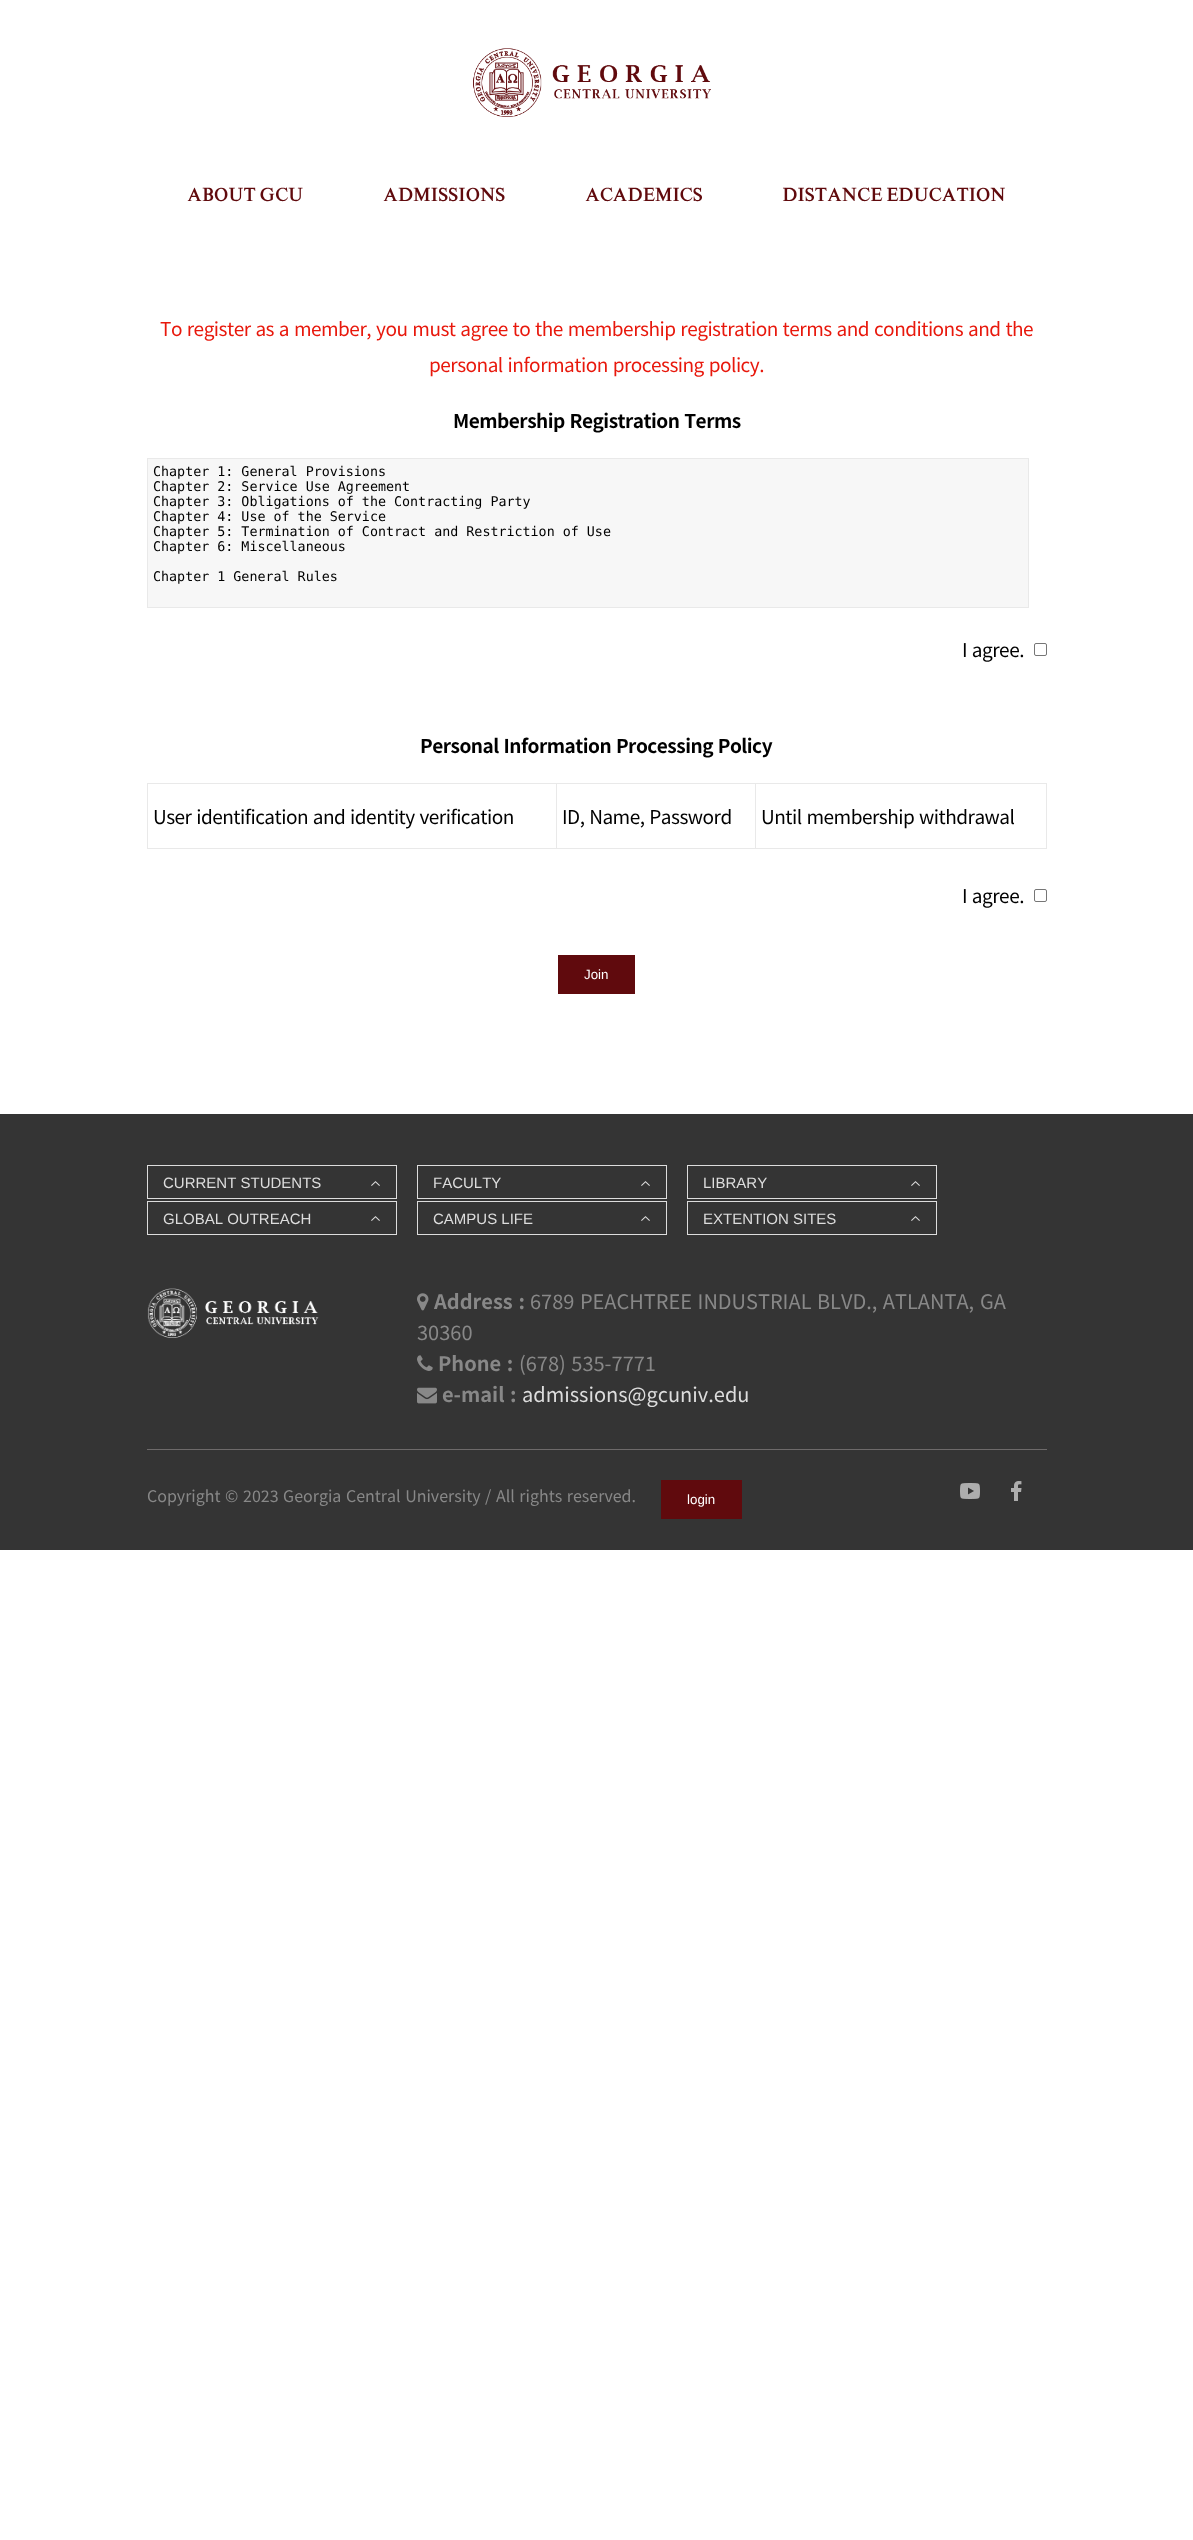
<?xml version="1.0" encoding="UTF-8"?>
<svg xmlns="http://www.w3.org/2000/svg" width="1193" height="2540">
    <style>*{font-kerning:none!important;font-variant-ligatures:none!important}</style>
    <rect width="100%" height="100%" fill="#FFFFFF"/>
    <image x="473" y="48" width="238" height="69" href="img_01.png"/>
    <text x="187" y="201" font-family="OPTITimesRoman" font-size="16" font-weight="700" letter-spacing="1" fill="#600A0D">ABOUT GCU</text>
    <text x="383" y="201" font-family="OPTITimesRoman" font-size="16" font-weight="700" letter-spacing="1" fill="#600A0D">ADMISSIONS</text>
    <text x="585" y="201" font-family="OPTITimesRoman" font-size="16" font-weight="700" letter-spacing="1" fill="#600A0D">ACADEMICS</text>
    <text x="782" y="201" font-family="OPTITimesRoman" font-size="16" font-weight="700" letter-spacing="1" fill="#600A0D">DISTANCE</text>
    <text x="886" y="201" font-family="OPTITimesRoman" font-size="16" font-weight="700" letter-spacing="1" fill="#600A0D">EDUCATION</text>
    <text x="160" y="336" word-spacing="1.1" font-family="Noto Sans KR" font-size="19" letter-spacing="-0.5" fill="#E8180C">To register as a member,</text>
    <text x="376" y="336" word-spacing="1.1" font-family="Noto Sans KR" font-size="19" letter-spacing="-0.5" fill="#E8180C">you must agree to the membership registration terms and conditions and the</text>
    <text x="429" y="372" word-spacing="1.1" font-family="Noto Sans KR" font-size="19" letter-spacing="-0.5" fill="#E8180C">personal information processing policy.</text>
    <text x="453" y="428" word-spacing="1" font-family="Noto Sans KR" font-size="19" font-weight="700" letter-spacing="-0.5" fill="#000000">Membership Registration Terms</text>
    <rect x="147.5" y="458.5" width="881" height="149" fill="#F7F7F7" stroke="#E9E9E9"/>
    <text font-family="DejaVu Sans Mono" font-size="13.35" fill="#000000">
        <tspan x="153" y="476">Chapter 1: General Provisions</tspan>
        <tspan x="153" y="491">Chapter 2: Service Use Agreement</tspan>
        <tspan x="153" y="506">Chapter 3: Obligations of the Contracting Party</tspan>
        <tspan x="153" y="521">Chapter 4: Use of the Service</tspan>
        <tspan x="153" y="536">Chapter 5: Termination of Contract and Restriction of Use</tspan>
        <tspan x="153" y="551">Chapter 6: Miscellaneous</tspan>
    </text>
    <text x="153" y="581" font-family="DejaVu Sans Mono" font-size="13.35" fill="#000000">Chapter 1 General Rules</text>
    <text x="962" y="657" word-spacing="1" font-family="Noto Sans KR" font-size="19" letter-spacing="-0.5" fill="#000000">I agree.</text>
    <rect x="1034.5" y="643.5" width="12" height="12" rx="1.5" fill="none" stroke="#767676"/>
    <text x="420" y="753" word-spacing="1" font-family="Noto Sans KR" font-size="19" font-weight="700" letter-spacing="-0.5" fill="#000000">Personal Information Processing Policy</text>
    <rect x="755" y="783" width="292" height="1" fill="#E9E9E9"/>
    <rect x="1046" y="783" width="1" height="66" fill="#E9E9E9"/>
    <rect x="755" y="848" width="292" height="1" fill="#E9E9E9"/>
    <rect x="755" y="783" width="1" height="66" fill="#E9E9E9"/>
    <rect x="556" y="783" width="200" height="1" fill="#E9E9E9"/>
    <rect x="556" y="848" width="200" height="1" fill="#E9E9E9"/>
    <rect x="556" y="783" width="1" height="66" fill="#E9E9E9"/>
    <rect x="147" y="783" width="410" height="1" fill="#E9E9E9"/>
    <rect x="147" y="848" width="410" height="1" fill="#E9E9E9"/>
    <rect x="147" y="783" width="1" height="66" fill="#E9E9E9"/>
    <text x="153" y="824" word-spacing="1" font-family="Noto Sans KR" font-size="19" letter-spacing="-0.5" fill="#000000">User identification and identity verification</text>
    <text x="562" y="824" word-spacing="1" font-family="Noto Sans KR" font-size="19" letter-spacing="-0.5" fill="#000000">ID, Name, Password</text>
    <text x="761" y="824" word-spacing="1.1" font-family="Noto Sans KR" font-size="19" letter-spacing="-0.5" fill="#000000">Until membership withdrawal</text>
    <text x="962" y="903" word-spacing="1" font-family="Noto Sans KR" font-size="19" letter-spacing="-0.5" fill="#000000">I agree.</text>
    <rect x="1034.5" y="889.5" width="12" height="12" rx="1.5" fill="none" stroke="#767676"/>
    <rect x="558" y="955" width="77" height="39" fill="#600A0D"/>
    <text x="584" y="979" font-family="Liberation Sans" font-size="13.35" fill="#FFFFFF">Join</text>
    <rect x="0" y="1114" width="1193" height="436" fill="#343434"/>
    <rect x="147.5" y="1165.5" width="249" height="33" fill="none" stroke="#DDDDDD"/>
    <image x="371" y="1181" width="9" height="5" href="img_02.png"/>
    <text x="163" y="1188" font-family="Liberation Sans" font-size="15" fill="#DDDDDD">CURRENT STUDENTS</text>
    <rect x="417.5" y="1165.5" width="249" height="33" fill="none" stroke="#DDDDDD"/>
    <image x="641" y="1181" width="9" height="5" href="img_02.png"/>
    <text x="433" y="1188" font-family="Liberation Sans" font-size="15" fill="#DDDDDD">FACULTY</text>
    <rect x="687.5" y="1165.5" width="249" height="33" fill="none" stroke="#DDDDDD"/>
    <image x="911" y="1181" width="9" height="5" href="img_02.png"/>
    <text x="703" y="1188" font-family="Liberation Sans" font-size="15" fill="#DDDDDD">LIBRARY</text>
    <rect x="147.5" y="1201.5" width="249" height="33" fill="none" stroke="#DDDDDD"/>
    <image x="371" y="1216" width="9" height="5" href="img_02.png"/>
    <text x="163" y="1224" font-family="Liberation Sans" font-size="15" fill="#DDDDDD">GLOBAL OUTREACH</text>
    <rect x="417.5" y="1201.5" width="249" height="33" fill="none" stroke="#DDDDDD"/>
    <image x="641" y="1216" width="9" height="5" href="img_02.png"/>
    <text x="433" y="1224" font-family="Liberation Sans" font-size="15" fill="#DDDDDD">CAMPUS LIFE</text>
    <rect x="687.5" y="1201.5" width="249" height="33" fill="none" stroke="#DDDDDD"/>
    <image x="911" y="1216" width="9" height="5" href="img_02.png"/>
    <text x="703" y="1224" font-family="Liberation Sans" font-size="15" fill="#DDDDDD">EXTENTION SITES</text>
    <image x="147" y="1288" width="172" height="50" href="img_03.png"/>
    <image x="417" y="1293" width="12" height="18" href="img_04.png"/>
    <text x="434" y="1309" word-spacing="1.1" font-family="Noto Sans KR" font-size="20" font-weight="700" fill="#888888">Address :</text>
    <text x="530" y="1309" word-spacing="1" font-family="Noto Sans KR" font-size="20" fill="#888888">6789 PEACHTREE INDUSTRIAL BLVD., ATLANTA,</text>
    <text x="980" y="1309" word-spacing="1" font-family="Noto Sans KR" font-size="20" fill="#888888">GA</text>
    <text x="417" y="1340" font-family="Noto Sans KR" font-size="20" fill="#888888">30360</text>
    <image x="417" y="1355" width="16" height="16" href="img_05.png"/>
    <text x="438" y="1371" word-spacing="1.1" font-family="Noto Sans KR" font-size="20" font-weight="700" fill="#888888">Phone :</text>
    <text x="519" y="1371" word-spacing="1" font-family="Noto Sans KR" font-size="20" fill="#888888">(678) 535-7771</text>
    <image x="417" y="1387" width="20" height="17" href="img_06.png"/>
    <text x="442" y="1402" word-spacing="1" font-family="Noto Sans KR" font-size="20" font-weight="700" fill="#888888">e-mail :</text>
    <text x="522" y="1402" font-family="Noto Sans KR" font-size="20" fill="#DDDDDD">admissions@gcuniv.edu</text>
    <rect x="147" y="1449" width="900" height="1" fill="#6D6A6A"/>
    <text x="147" y="1502" word-spacing="1" font-family="Noto Sans KR" font-size="16" fill="#888888">Copyright © 2023 Georgia Central University / All rights reserved.</text>
    <rect x="661" y="1480" width="81" height="39" fill="#600A0D"/>
    <text x="687" y="1504" font-family="Liberation Sans" font-size="13.35" fill="#FFFFFF">login</text>
    <image x="960" y="1483" width="20" height="16" href="img_07.png"/>
    <image x="1011" y="1481" width="11" height="20" href="img_08.png"/>
</svg>
